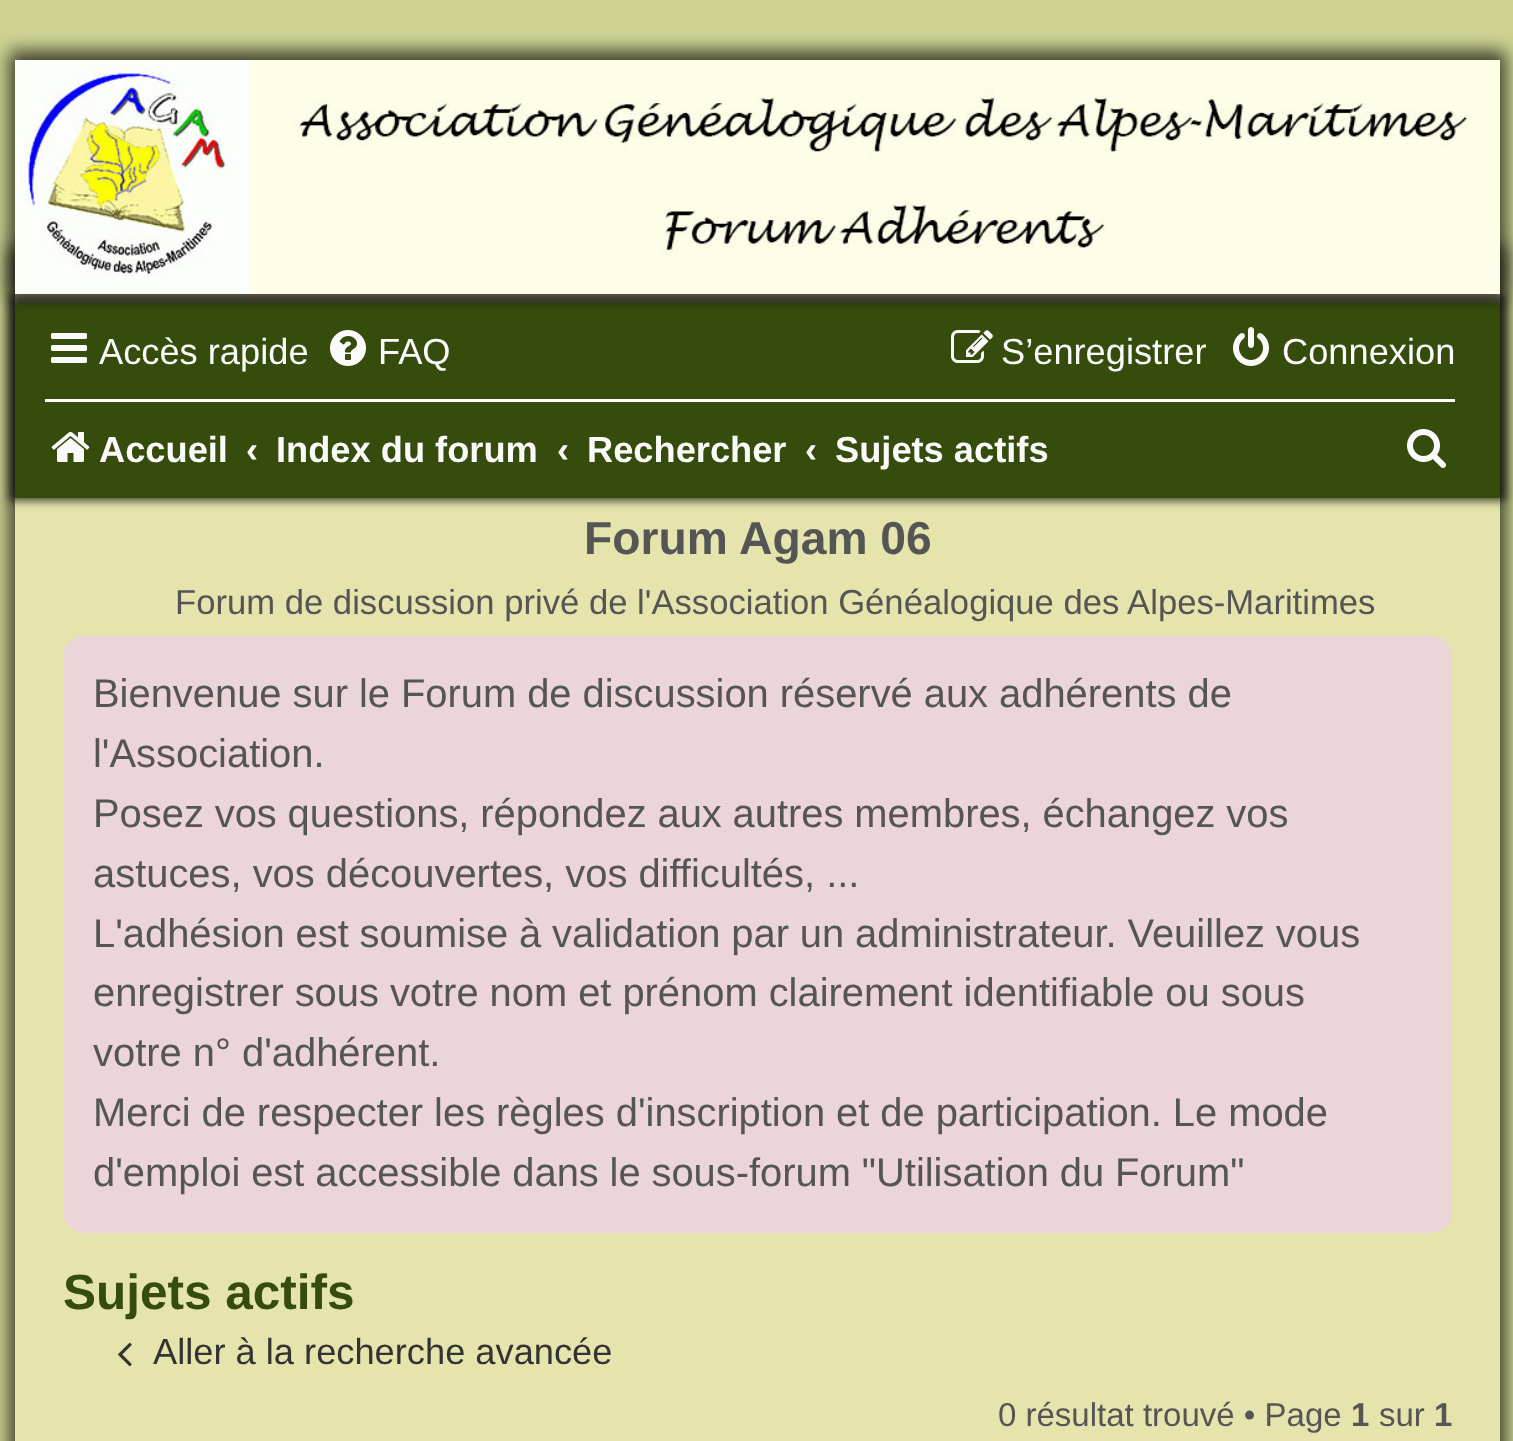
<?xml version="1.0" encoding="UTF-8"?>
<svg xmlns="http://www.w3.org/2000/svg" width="1513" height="1441">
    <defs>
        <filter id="blur1" x="-50%" y="-200%" width="200%" height="500%"><feGaussianBlur stdDeviation="9"/></filter>
        <filter id="blur2" x="-50%" y="-200%" width="200%" height="500%"><feGaussianBlur stdDeviation="4.5"/></filter>
    </defs>
    <rect width="100%" height="100%" fill="#CED392"/>
    <rect x="9" y="246" width="1497" height="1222" fill="#020202" fill-opacity="0.7" filter="url(#blur1)"/>
    <rect x="15" y="294" width="1485" height="1147" fill="#E5E4AC"/>
    <rect x="9" y="294" width="1497" height="207" fill="#020202" fill-opacity="0.7" filter="url(#blur2)"/>
    <rect x="15" y="303" width="1485" height="195" fill="#364C0C"/>
    <rect x="9" y="51" width="1497" height="246" fill="#020202" fill-opacity="0.7" filter="url(#blur1)"/>
    <image x="15" y="60" width="1485" height="234" href="img_01.png"/>
    <image x="51" y="333" width="36" height="30" href="img_02.png"/>
    <text x="99" y="364" font-family="Liberation Sans" font-size="36.25" fill="#FAFAFA">Accès rapide</text>
    <image x="330" y="330" width="36" height="36" href="img_03.png"/>
    <text x="378" y="364" font-family="Liberation Sans" font-size="36.25" fill="#FAFAFA">FAQ</text>
    <image x="951" y="330" width="42" height="33" href="img_04.png"/>
    <text x="1001" y="364" font-family="Liberation Sans" font-size="36.25" fill="#FAFAFA">S’enregistrer</text>
    <image x="1233" y="327" width="36" height="39" href="img_05.png"/>
    <text x="1282" y="364" font-family="Liberation Sans" font-size="36.25" fill="#FAFAFA">Connexion</text>
    <rect x="45" y="399" width="1410" height="3" fill="#FFFFFF"/>
    <image x="51" y="431" width="39" height="31" href="img_06.png"/>
    <text x="99" y="462" font-family="Liberation Sans" font-size="36.25" font-weight="700" fill="#FAFAFA">Accueil</text>
    <text x="246" y="462" font-family="Liberation Sans" font-size="36.25" font-weight="700" fill="#FAFAFA">‹</text>
    <text x="276" y="462" font-family="Liberation Sans" font-size="36.25" font-weight="700" fill="#FAFAFA">Index du forum</text>
    <text x="557" y="462" font-family="Liberation Sans" font-size="36.25" font-weight="700" fill="#FAFAFA">‹</text>
    <text x="587" y="462" font-family="Liberation Sans" font-size="36.25" font-weight="700" fill="#FAFAFA">Rechercher</text>
    <text x="805" y="462" font-family="Liberation Sans" font-size="36.25" font-weight="700" fill="#FAFAFA">‹</text>
    <text x="835" y="462" font-family="Liberation Sans" font-size="36.25" font-weight="700" fill="#FAFAFA">Sujets actifs</text>
    <image x="1407" y="429" width="39" height="39" href="img_07.png"/>
    <text x="584" y="554" font-family="Liberation Sans" font-size="46.25" font-weight="700" fill="#555555">Forum Agam 06</text>
    <text x="175" y="614" font-family="Liberation Sans" font-size="34.65" fill="#555555">Forum de discussion privé de l'Association Généalogique des Alpes-Maritimes</text>
    <rect x="63" y="636" width="1389" height="597" rx="21" fill="#ECD5D8"/>
    <text font-family="Liberation Sans" font-size="39.9" fill="#555555">
        <tspan x="93" y="707" word-spacing="-0.1">Bienvenue sur le Forum de discussion réservé aux adhérents de</tspan>
        <tspan x="93" y="767">l'Association.</tspan>
        <tspan x="93" y="827" word-spacing="-0.25">Posez vos questions, répondez aux autres membres, échangez vos</tspan>
        <tspan x="93" y="887">astuces, vos découvertes, vos difficultés, ...</tspan>
        <tspan x="93" y="947" word-spacing="-0.25">L'adhésion est soumise à validation par un administrateur. Veuillez vous</tspan>
        <tspan x="93" y="1006" word-spacing="-0.1">enregistrer sous votre nom et prénom clairement identifiable ou sous</tspan>
        <tspan x="93" y="1066">votre n° d'adhérent.</tspan>
        <tspan x="93" y="1126" word-spacing="-0.1">Merci de respecter les règles d'inscription et de participation. Le mode</tspan>
        <tspan x="93" y="1186" word-spacing="-0.25">d'emploi est accessible dans le sous-forum "Utilisation du Forum"</tspan>
    </text>
    <text x="63" y="1309" font-family="Liberation Sans" font-size="49.5" font-weight="700" fill="#364C0C">Sujets actifs</text>
    <image x="118" y="1342" width="14" height="25" href="img_08.png"/>
    <text x="153" y="1364" font-family="Liberation Sans" font-size="36.25" fill="#333333">Aller à la recherche avancée</text>
    <text x="998" y="1426" font-family="Liberation Sans" font-size="33" fill="#555555">0 résultat trouvé • Page</text>
    <text x="1351" y="1426" font-family="Liberation Sans" font-size="33" font-weight="700" fill="#555555">1</text>
    <text x="1379" y="1426" font-family="Liberation Sans" font-size="33" fill="#555555">sur</text>
    <text x="1434" y="1426" font-family="Liberation Sans" font-size="33" font-weight="700" fill="#555555">1</text>
</svg>
